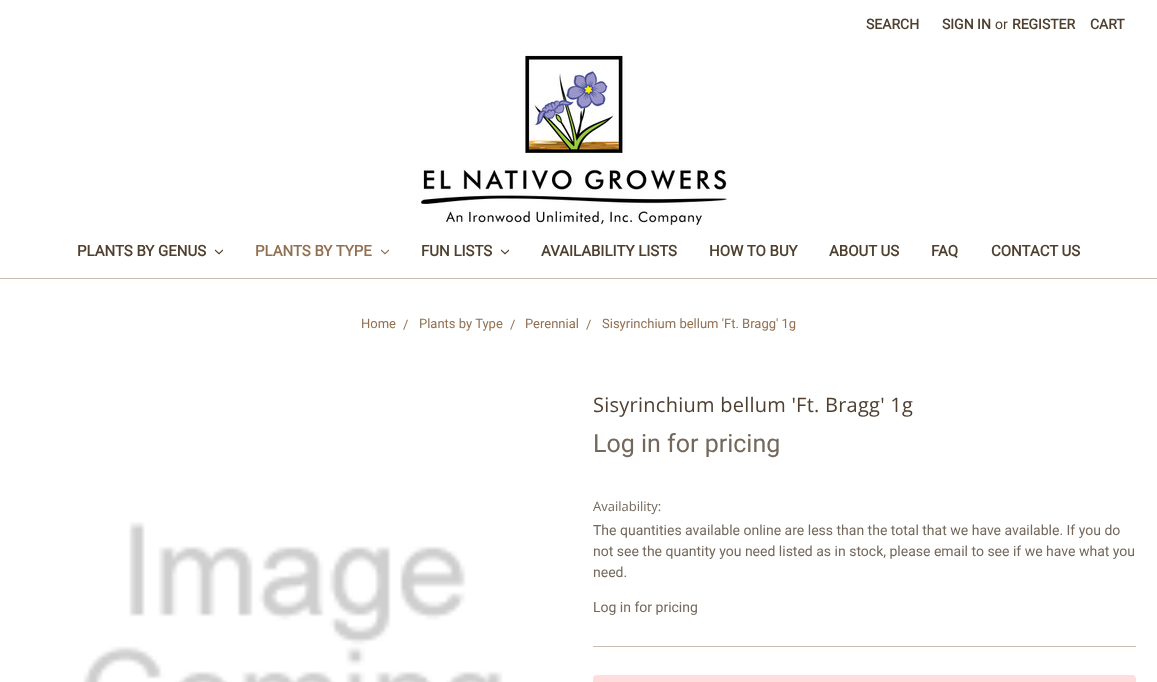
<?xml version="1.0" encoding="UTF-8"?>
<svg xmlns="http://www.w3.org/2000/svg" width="1157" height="682">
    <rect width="100%" height="100%" fill="#FFFFFF"/>
    <rect x="0" y="278" width="1157" height="1" fill="#CCBDAE"/>
    <text x="866" y="29" font-family="Roboto" font-size="14" font-weight="700" fill="#4F3F2F">SEARCH</text>
    <text x="942" y="29" font-family="Roboto" font-size="14" font-weight="700" fill="#4F3F2F">SIGN IN</text>
    <text x="995" y="29" font-family="Roboto" font-size="14" fill="#4F3F2F">or</text>
    <text x="1012" y="29" font-family="Roboto" font-size="14" font-weight="700" fill="#4F3F2F">REGISTER</text>
    <text x="1090" y="29" font-family="Roboto" font-size="14" font-weight="700" fill="#4F3F2F">CART</text>
    <image x="416" y="50" width="312" height="175" href="img_01.png"/>
    <text x="77" y="256" font-family="Roboto" font-size="15" font-weight="700" fill="#4F3F2F">PLANTS BY GENUS</text>
    <image x="215" y="249" width="8" height="6" href="img_02.png"/>
    <text x="255" y="256" font-family="Roboto" font-size="15" font-weight="700" fill="#917052">PLANTS BY TYPE</text>
    <image x="381" y="249" width="8" height="6" href="img_03.png"/>
    <text x="421" y="256" font-family="Roboto" font-size="15" font-weight="700" fill="#4F3F2F">FUN LISTS</text>
    <image x="501" y="249" width="8" height="6" href="img_02.png"/>
    <text x="541" y="256" font-family="Roboto" font-size="15" font-weight="700" fill="#4F3F2F">AVAILABILITY LISTS</text>
    <text x="709" y="256" font-family="Roboto" font-size="15" font-weight="700" fill="#4F3F2F">HOW TO BUY</text>
    <text x="829" y="256" font-family="Roboto" font-size="15" font-weight="700" fill="#4F3F2F">ABOUT US</text>
    <text x="931" y="256" font-family="Roboto" font-size="15" font-weight="700" fill="#4F3F2F">FAQ</text>
    <text x="991" y="256" font-family="Roboto" font-size="15" font-weight="700" fill="#4F3F2F">CONTACT US</text>
    <text x="361" y="328" font-family="Roboto" font-size="13" fill="#917052">Home</text>
    <text x="403" y="329" font-family="Roboto" font-size="13" fill="#917052">/</text>
    <text x="419" y="328" font-family="Roboto" font-size="13" fill="#917052">Plants by Type</text>
    <text x="510" y="329" font-family="Roboto" font-size="13" fill="#917052">/</text>
    <text x="525" y="328" font-family="Roboto" font-size="13" fill="#917052">Perennial</text>
    <text x="586" y="329" font-family="Roboto" font-size="13" fill="#917052">/</text>
    <text x="602" y="328" font-family="Roboto" font-size="13" fill="#917052">Sisyrinchium bellum 'Ft. Bragg' 1g</text>
    <image x="83" y="522" width="420" height="160" href="img_04.png"/>
    <rect x="593" y="646" width="543" height="1" fill="#CCBDAE"/>
    <text x="593" y="412" font-family="Open Sans" font-size="20" letter-spacing="0.25" fill="#4F3F2F">Sisyrinchium bellum 'Ft. Bragg' 1g</text>
    <text x="593" y="452" font-family="Roboto" font-size="25" fill="#74685C">Log in for pricing</text>
    <text x="593" y="511" font-family="Open Sans" font-size="13" fill="#74685C">Availability:</text>
    <text font-family="Roboto" font-size="14" fill="#74685C">
        <tspan x="593" y="535">The quantities available online are less than the total that we have available. If you do</tspan>
        <tspan x="593" y="556">not see the quantity you need listed as in stock, please email to see if we have what you</tspan>
        <tspan x="593" y="577">need.</tspan>
    </text>
    <text x="593" y="612" font-family="Roboto" font-size="14" fill="#74685C">Log in for pricing</text>
    <rect x="593" y="675" width="543" height="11" rx="4" fill="#FFDDDD"/>
</svg>
